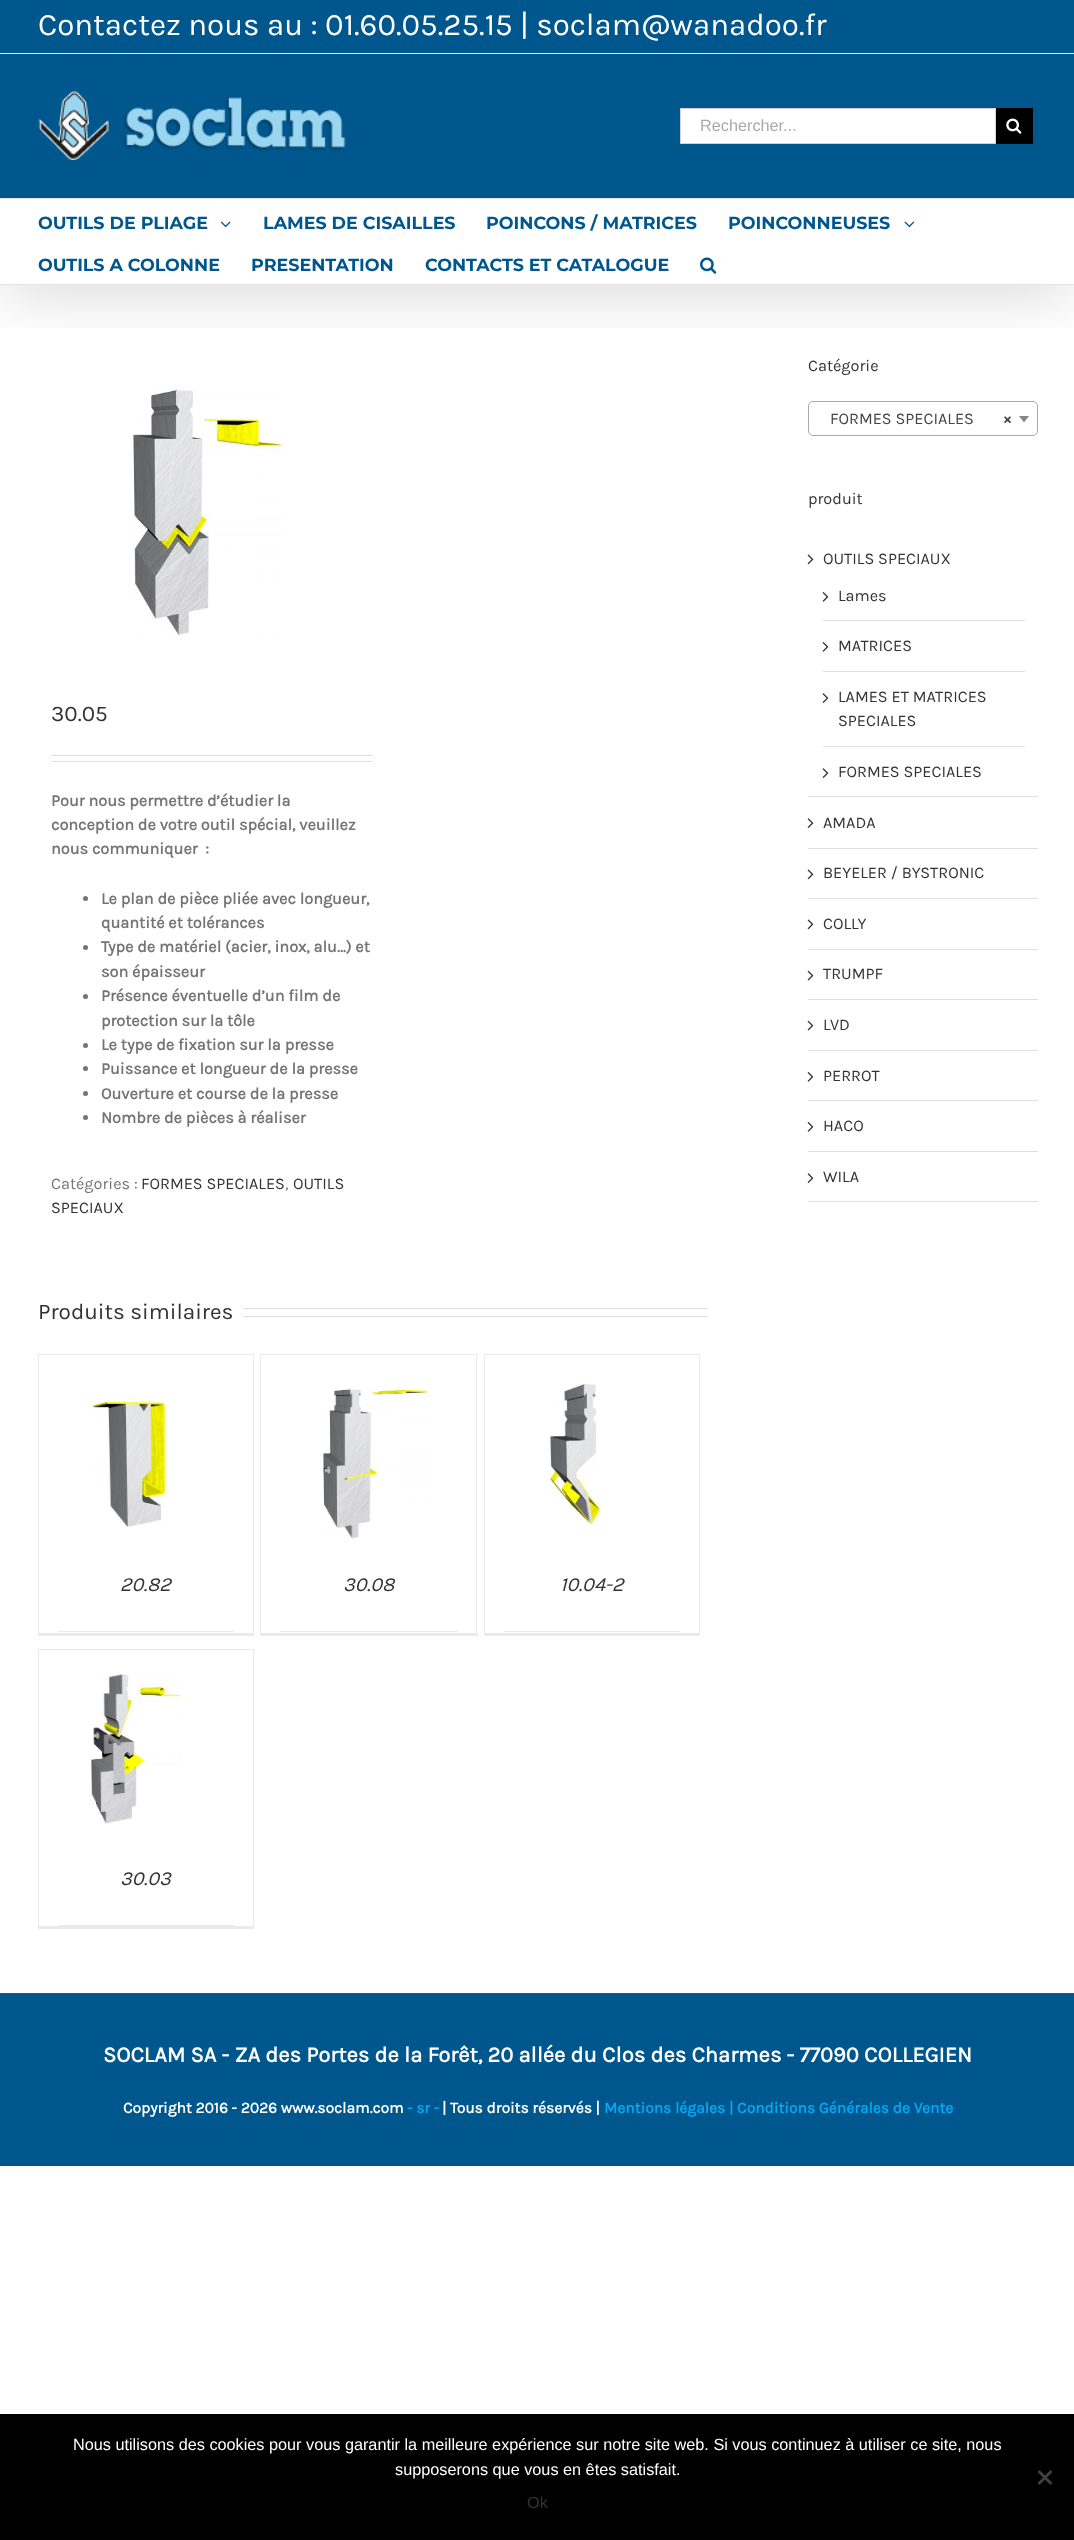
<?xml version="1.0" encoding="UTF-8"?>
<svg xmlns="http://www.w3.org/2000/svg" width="1074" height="2540">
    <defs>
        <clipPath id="clip1"><rect x="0" y="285" width="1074" height="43"/></clipPath>
        <filter id="blur1" x="-50%" y="-200%" width="200%" height="500%"><feGaussianBlur stdDeviation="31"/></filter>
    </defs>
    <rect width="100%" height="100%" fill="#FFFFFF"/>
    <image x="130" y="387" width="154" height="250" href="img_06.png"/>
    <g clip-path="url(#clip1)">
        <rect x="3" y="15" width="1070" height="280" fill="#000000" fill-opacity="0.14" filter="url(#blur1)"/>
    </g>
    <rect x="0" y="0" width="1074" height="53" fill="#00578D"/>
    <rect x="0" y="53" width="1074" height="1" fill="#E5E5E5"/>
    <text x="38" y="35" font-family="Karla" font-size="31.25" fill="#FFFFFF">Contactez nous au : 01.60.05.25.15 | soclam@wanadoo.fr</text>
    <rect x="0" y="54" width="1074" height="144" fill="#00578D"/>
    <rect x="0" y="198" width="1074" height="1" fill="#E5E5E5"/>
    <image x="38" y="91" width="308" height="69" href="img_01.png"/>
    <rect x="680.5" y="108.5" width="315" height="35" fill="#FFFFFF" stroke="#D2D2D2"/>
    <text x="700" y="131" font-family="Liberation Sans" font-size="16.25" fill="#AAA9A9">Rechercher...</text>
    <rect x="996" y="108" width="37" height="36" fill="#000000"/>
    <image x="1006" y="118" width="16" height="16" href="img_02.png"/>
    <rect x="0" y="284" width="1074" height="1" fill="#E5E5E5"/>
    <text x="38" y="229" font-family="Montserrat" font-size="17.5" font-weight="700" fill="#00578D">OUTILS DE PLIAGE</text>
    <image x="220" y="221" width="11" height="7" href="img_03.png"/>
    <text x="263" y="229" font-family="Montserrat" font-size="17.5" font-weight="700" fill="#00578D">LAMES DE CISAILLES</text>
    <text x="486" y="229" font-family="Montserrat" font-size="17.5" font-weight="700" fill="#00578D">POINCONS / MATRICES</text>
    <text x="728" y="229" font-family="Montserrat" font-size="17.5" font-weight="700" fill="#00578D">POINCONNEUSES</text>
    <image x="904" y="221" width="11" height="7" href="img_04.png"/>
    <text x="38" y="271" font-family="Montserrat" font-size="17.5" font-weight="700" fill="#00578D">OUTILS A COLONNE</text>
    <text x="251" y="271" font-family="Montserrat" font-size="17.5" font-weight="700" fill="#00578D">PRESENTATION</text>
    <text x="425" y="271" font-family="Montserrat" font-size="17.5" font-weight="700" fill="#00578D">CONTACTS ET CATALOGUE</text>
    <image x="700" y="257" width="17" height="17" href="img_05.png"/>
    <text x="51" y="721" font-family="Karla" font-size="22.5" fill="#333333">30.05</text>
    <rect x="51" y="755" width="322" height="1" fill="#E0DEDE"/>
    <rect x="51" y="761" width="322" height="1" fill="#E0DEDE"/>
    <text font-family="Karla" font-size="16.25" font-weight="700" fill="#747474" xml:space="preserve"><tspan x="51" y="806">Pour nous permettre d’étudier la</tspan><tspan x="51" y="830">conception de votre outil spécial, veuillez</tspan><tspan x="51" y="854">nous communiquer  :</tspan></text>
    <circle cx="85.5" cy="898.5" r="2.5" fill="#747474"/>
    <text font-family="Karla" font-size="16.25" font-weight="700" fill="#747474">
        <tspan x="101" y="904">Le plan de pièce pliée avec longueur,</tspan>
        <tspan x="101" y="928">quantité et tolérances</tspan>
    </text>
    <circle cx="85.5" cy="947.5" r="2.5" fill="#747474"/>
    <text font-family="Karla" font-size="16.25" font-weight="700" fill="#747474">
        <tspan x="101" y="952">Type de matériel (acier, inox, alu…) et</tspan>
        <tspan x="101" y="977">son épaisseur</tspan>
    </text>
    <circle cx="85.5" cy="996.5" r="2.5" fill="#747474"/>
    <text font-family="Karla" font-size="16.25" font-weight="700" fill="#747474">
        <tspan x="101" y="1001">Présence éventuelle d’un film de</tspan>
        <tspan x="101" y="1026">protection sur la tôle</tspan>
    </text>
    <circle cx="85.5" cy="1045.5" r="2.5" fill="#747474"/>
    <text x="101" y="1050" font-family="Karla" font-size="16.25" font-weight="700" fill="#747474">Le type de fixation sur la presse</text>
    <circle cx="85.5" cy="1068.5" r="2.5" fill="#747474"/>
    <text x="101" y="1074" font-family="Karla" font-size="16.25" font-weight="700" fill="#747474">Puissance et longueur de la presse</text>
    <circle cx="85.5" cy="1093.5" r="2.5" fill="#747474"/>
    <text x="101" y="1099" font-family="Karla" font-size="16.25" font-weight="700" fill="#747474">Ouverture et course de la presse</text>
    <circle cx="85.5" cy="1117.5" r="2.5" fill="#747474"/>
    <text x="101" y="1123" font-family="Karla" font-size="16.25" font-weight="700" fill="#747474">Nombre de pièces à réaliser</text>
    <text x="51" y="1189" font-family="Karla" font-size="16.25" fill="#747474">Catégories :</text>
    <text x="141" y="1189" font-family="Karla" font-size="16.25" fill="#333333">FORMES SPECIALES</text>
    <text x="285" y="1189" font-family="Karla" font-size="16.25" fill="#747474">,</text>
    <text x="293" y="1189" font-family="Karla" font-size="16.25" fill="#333333">OUTILS</text>
    <text x="51" y="1213" font-family="Karla" font-size="16.25" fill="#333333">SPECIAUX</text>
    <text x="38" y="1319" font-family="Karla" font-size="22.5" fill="#333333">Produits similaires</text>
    <rect x="243" y="1308" width="465" height="1" fill="#E0DEDE"/>
    <rect x="243" y="1316" width="465" height="1" fill="#E0DEDE"/>
    <rect x="38" y="1354" width="216" height="1" fill="#EBEAEA"/>
    <rect x="253" y="1354" width="1" height="281" fill="#EBEAEA"/>
    <rect x="38" y="1633" width="216" height="3" fill="#EBEAEA"/>
    <rect x="38" y="1354" width="1" height="281" fill="#EBEAEA"/>
    <image x="90" y="1396" width="79" height="131" href="img_07.png"/>
    <rect x="58" y="1631" width="176" height="1" fill="#EBEAEA"/>
    <text x="120" y="1591" font-family="Karla" font-size="20" font-style="italic" fill="#333333">20.82</text>
    <rect x="260" y="1354" width="218" height="1" fill="#EBEAEA"/>
    <rect x="476" y="1354" width="1" height="281" fill="#EBEAEA"/>
    <rect x="260" y="1633" width="218" height="3" fill="#EBEAEA"/>
    <rect x="260" y="1354" width="1" height="281" fill="#EBEAEA"/>
    <image x="323" y="1389" width="109" height="150" href="img_08.png"/>
    <rect x="280" y="1631" width="178" height="1" fill="#EBEAEA"/>
    <text x="343" y="1591" font-family="Karla" font-size="20" font-style="italic" fill="#333333">30.08</text>
    <rect x="484" y="1354" width="216" height="1" fill="#EBEAEA"/>
    <rect x="699" y="1354" width="1" height="281" fill="#EBEAEA"/>
    <rect x="484" y="1633" width="216" height="3" fill="#EBEAEA"/>
    <rect x="484" y="1354" width="1" height="281" fill="#EBEAEA"/>
    <image x="547" y="1383" width="54" height="144" href="img_09.png"/>
    <rect x="504" y="1631" width="176" height="1" fill="#EBEAEA"/>
    <text x="560" y="1591" font-family="Karla" font-size="20" font-style="italic" fill="#333333">10.04-2</text>
    <rect x="38" y="1649" width="216" height="1" fill="#EBEAEA"/>
    <rect x="253" y="1649" width="1" height="280" fill="#EBEAEA"/>
    <rect x="38" y="1926" width="216" height="3" fill="#EBEAEA"/>
    <rect x="38" y="1649" width="1" height="280" fill="#EBEAEA"/>
    <image x="91" y="1674" width="91" height="150" href="img_10.png"/>
    <rect x="58" y="1925" width="176" height="1" fill="#EBEAEA"/>
    <text x="120" y="1885" font-family="Karla" font-size="20" font-style="italic" fill="#333333">30.03</text>
    <text x="808" y="371" font-family="Karla" font-size="16.25" fill="#333333">Catégorie</text>
    <rect x="808.5" y="401.5" width="229" height="34" rx="4.5" fill="none" stroke="#AAAAAA"/>
    <text x="830" y="424" font-family="Karla" font-size="16.25" fill="#444444">FORMES SPECIALES</text>
    <text x="1003" y="424" font-family="Karla" font-size="16.25" font-weight="700" fill="#444444">×</text>
    <path d="M 1019 416 H 1029 L 1024 422.5 Z" fill="#888888"/>
    <text x="808" y="504" font-family="Karla" font-size="16.25" fill="#333333">produit</text>
    <rect x="808" y="796" width="230" height="1" fill="#E0DEDE"/>
    <image x="807" y="554" width="7" height="11" href="img_11.png"/>
    <text x="823" y="564" font-family="Karla" font-size="16.25" fill="#333333">OUTILS SPECIAUX</text>
    <rect x="823" y="620" width="202" height="1" fill="#E0DEDE"/>
    <image x="822" y="592" width="7" height="10" href="img_12.png"/>
    <text x="838" y="601" font-family="Karla" font-size="16.25" fill="#333333">Lames</text>
    <rect x="823" y="671" width="202" height="1" fill="#E0DEDE"/>
    <image x="822" y="642" width="7" height="10" href="img_12.png"/>
    <text x="838" y="651" font-family="Karla" font-size="16.25" fill="#333333">MATRICES</text>
    <rect x="823" y="746" width="202" height="1" fill="#E0DEDE"/>
    <image x="822" y="693" width="7" height="10" href="img_13.png"/>
    <text font-family="Karla" font-size="16.25" fill="#333333">
        <tspan x="838" y="702">LAMES ET MATRICES</tspan>
        <tspan x="838" y="726">SPECIALES</tspan>
    </text>
    <image x="822" y="768" width="7" height="10" href="img_13.png"/>
    <text x="838" y="777" font-family="Karla" font-size="16.25" fill="#333333">FORMES SPECIALES</text>
    <rect x="808" y="848" width="230" height="1" fill="#E0DEDE"/>
    <image x="807" y="818" width="7" height="10" href="img_13.png"/>
    <text x="823" y="828" font-family="Karla" font-size="16.25" fill="#333333">AMADA</text>
    <rect x="808" y="898" width="230" height="1" fill="#E0DEDE"/>
    <image x="807" y="869" width="7" height="11" href="img_11.png"/>
    <text x="823" y="878" font-family="Karla" font-size="16.25" fill="#333333">BEYELER / BYSTRONIC</text>
    <rect x="808" y="949" width="230" height="1" fill="#E0DEDE"/>
    <image x="807" y="919" width="7" height="11" href="img_11.png"/>
    <text x="823" y="929" font-family="Karla" font-size="16.25" fill="#333333">COLLY</text>
    <rect x="808" y="999" width="230" height="1" fill="#E0DEDE"/>
    <image x="807" y="970" width="7" height="11" href="img_14.png"/>
    <text x="823" y="979" font-family="Karla" font-size="16.25" fill="#333333">TRUMPF</text>
    <rect x="808" y="1050" width="230" height="1" fill="#E0DEDE"/>
    <image x="807" y="1020" width="7" height="11" href="img_14.png"/>
    <text x="823" y="1030" font-family="Karla" font-size="16.25" fill="#333333">LVD</text>
    <rect x="808" y="1100" width="230" height="1" fill="#E0DEDE"/>
    <image x="807" y="1072" width="7" height="10" href="img_12.png"/>
    <text x="823" y="1081" font-family="Karla" font-size="16.25" fill="#333333">PERROT</text>
    <rect x="808" y="1151" width="230" height="1" fill="#E0DEDE"/>
    <image x="807" y="1122" width="7" height="10" href="img_12.png"/>
    <text x="823" y="1131" font-family="Karla" font-size="16.25" fill="#333333">HACO</text>
    <rect x="808" y="1201" width="230" height="1" fill="#E0DEDE"/>
    <image x="807" y="1173" width="7" height="10" href="img_13.png"/>
    <text x="823" y="1182" font-family="Karla" font-size="16.25" fill="#333333">WILA</text>
    <rect x="0" y="1994" width="1074" height="172" fill="#00578D"/>
    <rect x="0" y="1993" width="1074" height="1" fill="#4B4C4D"/>
    <text x="103" y="2062" font-family="Karla" font-size="21.95" font-weight="700" fill="#FFFFFF">SOCLAM SA - ZA des Portes de la Forêt, 20 allée du Clos des Charmes - 77090 COLLEGIEN</text>
    <text x="123" y="2113" font-family="Karla" font-size="15.6" font-weight="700" fill="#FFFFFF">Copyright 2016 - 2026 www.soclam.com</text>
    <text x="407" y="2113" font-family="Karla" font-size="15.6" font-weight="700" fill="#03A9F4">- sr -</text>
    <text x="442" y="2113" font-family="Karla" font-size="15.6" font-weight="700" fill="#FFFFFF">| Tous droits réservés |</text>
    <text x="604" y="2113" font-family="Karla" font-size="15.6" font-weight="700" fill="#03A9F4">Mentions légales | Conditions Générales de Vente</text>
    <rect x="0" y="2414" width="1074" height="126" fill="#000000"/>
    <text x="73" y="2450" font-family="Liberation Sans" font-size="16.25" fill="#FFFFFF">Nous utilisons des cookies pour vous garantir la meilleure expérience sur notre site web. Si vous continuez à utiliser ce site, nous</text>
    <text x="395" y="2475" font-family="Liberation Sans" font-size="16.25" fill="#FFFFFF">supposerons que vous en êtes satisfait.</text>
    <path d="M 1050.5 2470 L 1052.5 2472 L 1039.5 2485 L 1037.5 2483 Z" fill="#404040"/>
    <path d="M 1037.5 2472 L 1039.5 2470 L 1052.5 2483 L 1050.5 2485 Z" fill="#404040"/>
    <text x="527" y="2508" font-family="Liberation Sans" font-size="16.25" fill="#333333">Ok</text>
</svg>
